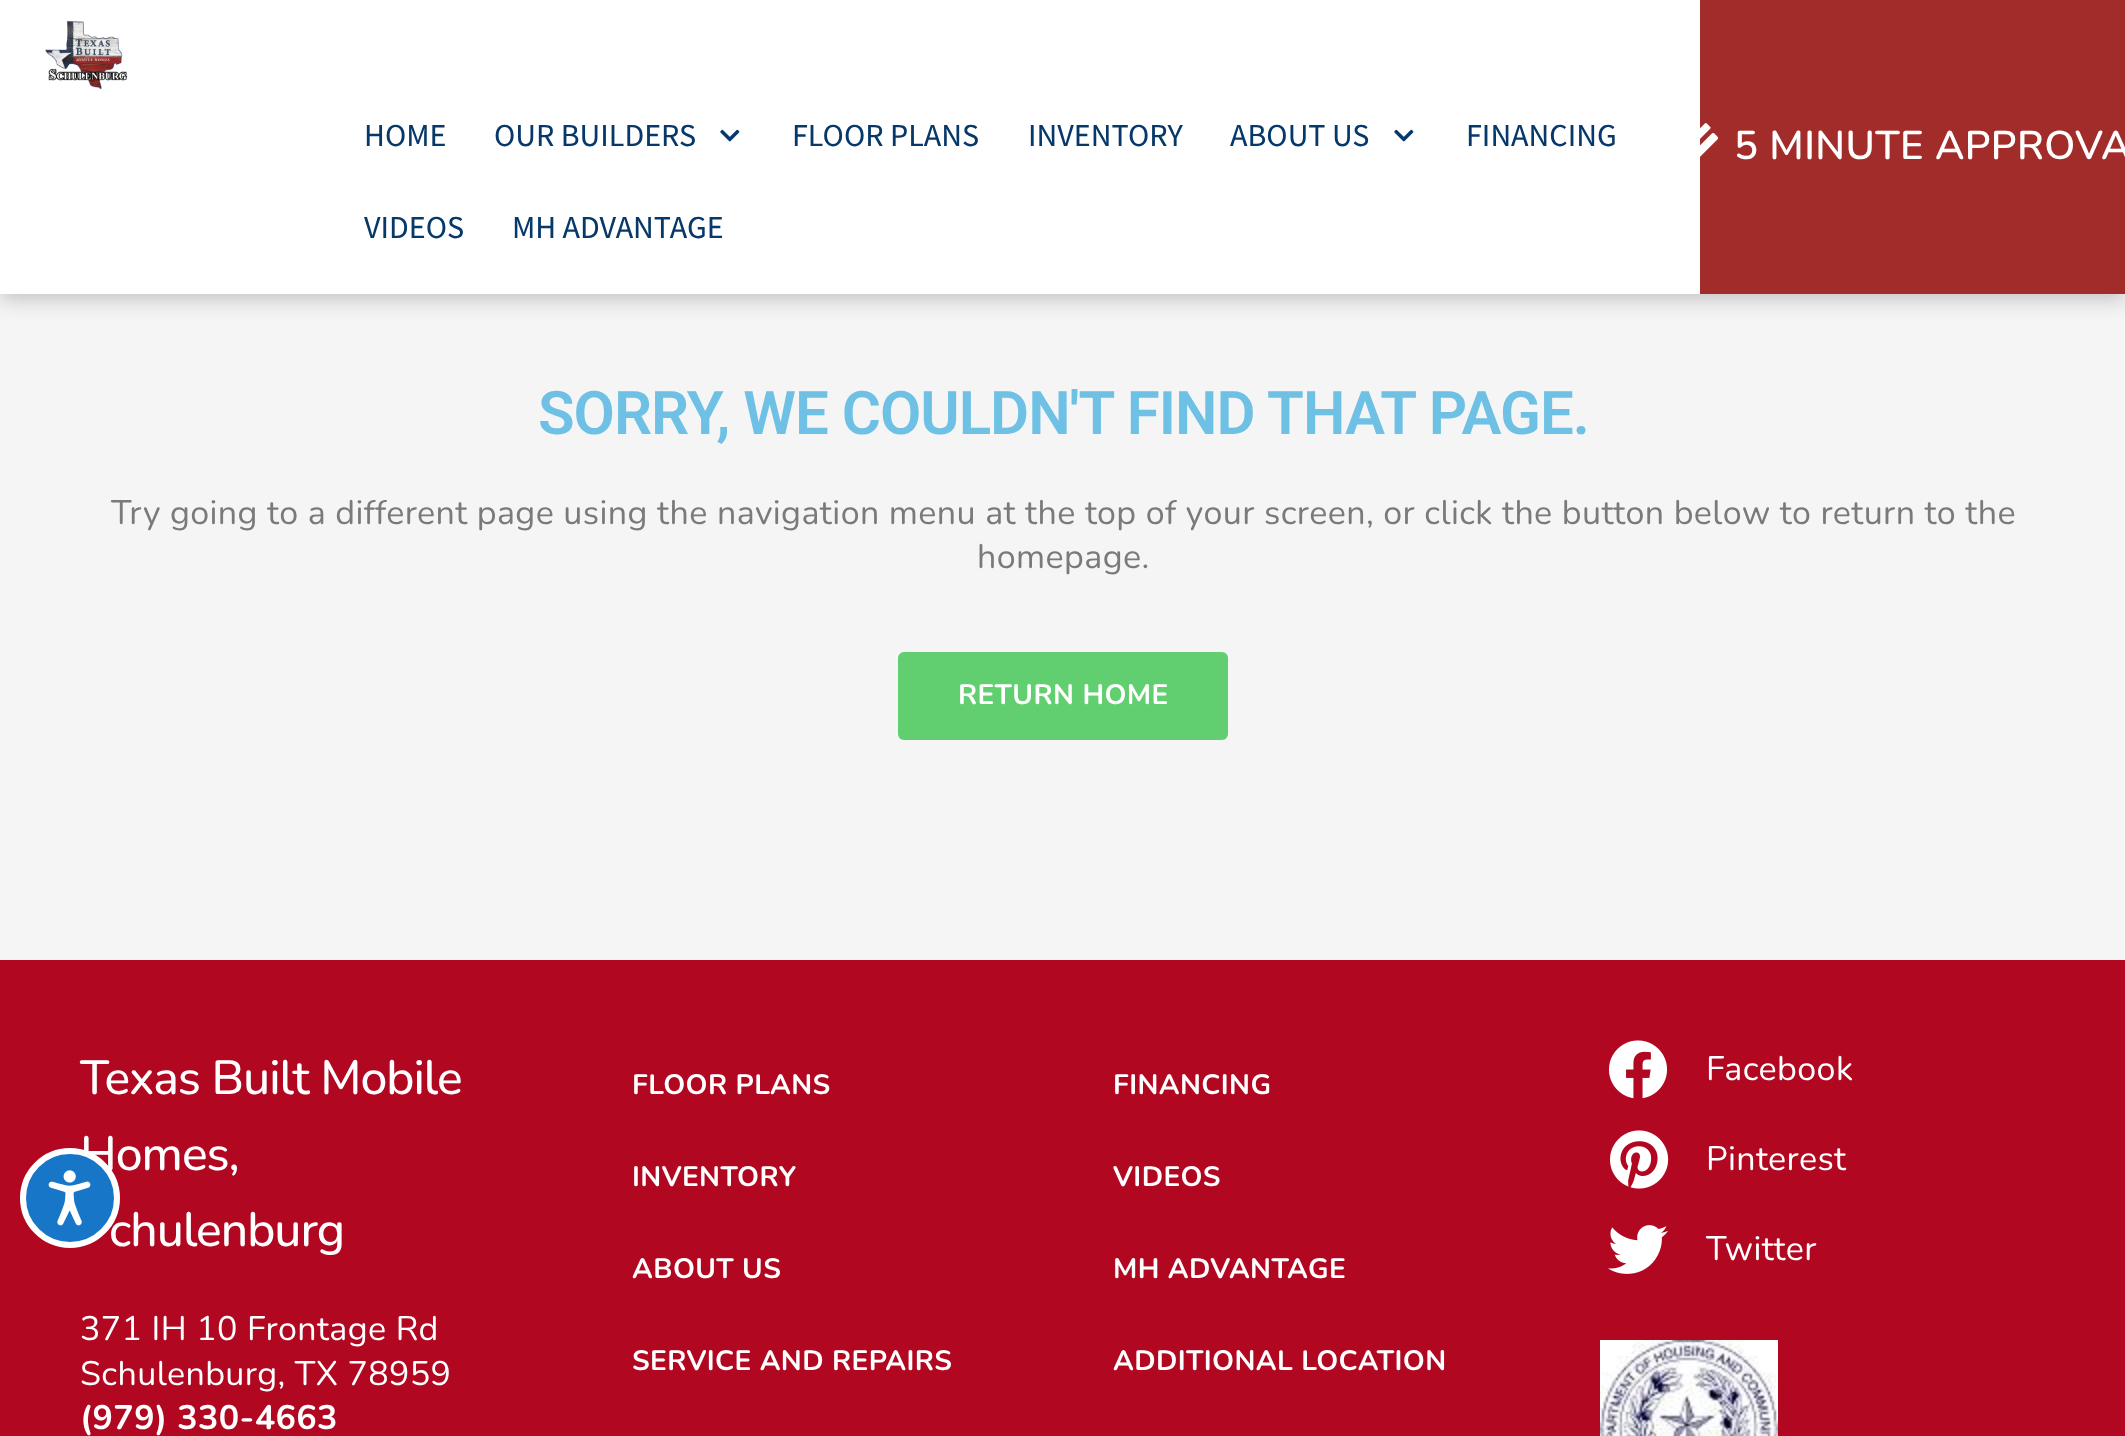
<?xml version="1.0" encoding="UTF-8"?>
<svg xmlns="http://www.w3.org/2000/svg" width="2125" height="1436">
    <defs>
        <filter id="blur1" x="-50%" y="-200%" width="200%" height="500%"><feGaussianBlur stdDeviation="10"/></filter>
    </defs>
    <rect width="100%" height="100%" fill="#F5F5F5"/>
    <rect x="0" y="6" width="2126" height="294" fill="#000000" fill-opacity="0.2" filter="url(#blur1)"/>
    <rect x="0" y="0" width="1700" height="294" fill="#FFFFFF"/>
    <image x="45" y="21" width="83" height="69" href="img_01.png"/>
    <text x="364" y="146" font-family="Assistant" font-size="32" font-weight="500" fill="#06386A">HOME</text>
    <text x="494" y="146" font-family="Assistant" font-size="32" font-weight="500" fill="#06386A">OUR BUILDERS</text>
    <image x="720" y="129" width="20" height="13" href="img_02.png"/>
    <text x="792" y="146" font-family="Assistant" font-size="32" font-weight="500" fill="#06386A">FLOOR PLANS</text>
    <text x="1028" y="146" font-family="Assistant" font-size="32" font-weight="500" fill="#06386A">INVENTORY</text>
    <text x="1230" y="146" font-family="Assistant" font-size="32" font-weight="500" fill="#06386A">ABOUT US</text>
    <image x="1394" y="129" width="20" height="13" href="img_02.png"/>
    <text x="1466" y="146" font-family="Assistant" font-size="32" font-weight="500" fill="#06386A">FINANCING</text>
    <text x="364" y="238" font-family="Assistant" font-size="32" font-weight="500" fill="#06386A">VIDEOS</text>
    <text x="512" y="238" font-family="Assistant" font-size="32" font-weight="500" fill="#06386A">MH ADVANTAGE</text>
    <rect x="1700" y="0" width="425" height="294" fill="#A22C29"/>
    <image x="1700" y="123" width="18" height="34" href="img_03.png"/>
    <text x="1734" y="159" font-family="Nunito" font-size="40" font-weight="600" letter-spacing="0.4" fill="#FFFFFF">5 MINUTE APPROVA</text>
    <text x="538" y="434" font-family="Roboto" font-size="60" font-weight="600" letter-spacing="-1" fill="#6EC1E4">SORRY, WE COULDN'T FIND THAT PAGE.</text>
    <text x="111" y="524" font-family="Nunito" font-size="34" letter-spacing="0.4" fill="#7A7A7A">Try going to a different page using the navigation menu at the top of your screen, or click the button below to return to the</text>
    <text x="977" y="568" font-family="Nunito" font-size="34" letter-spacing="0.4" fill="#7A7A7A">homepage.</text>
    <rect x="898" y="652" width="330" height="88" rx="6" fill="#61CE70"/>
    <text x="958" y="704" font-family="Nunito" font-size="28" font-weight="700" letter-spacing="0.4" fill="#FFFFFF">RETURN HOME</text>
    <rect x="0" y="960" width="2125" height="476" fill="#B10721"/>
    <text x="80" y="1170" font-family="Nunito" font-size="48" font-weight="500" letter-spacing="-1" fill="#FFFFFF">Homes,</text>
    <text x="109" y="1246" font-family="Nunito" font-size="48" font-weight="500" letter-spacing="-1" fill="#FFFFFF">chulenburg</text>
    <circle cx="70" cy="1198" r="47" fill="#1876C9" stroke="#FFFFFF" stroke-width="6"/>
    <image x="48" y="1170" width="43" height="56" href="img_04.png"/>
    <text x="80" y="1094" font-family="Nunito" font-size="48" font-weight="500" letter-spacing="-1" fill="#FFFFFF">Texas Built Mobile</text>
    <text font-family="Nunito" font-size="34" letter-spacing="0.4" fill="#FFFFFF">
        <tspan x="80" y="1340">371 IH 10 Frontage Rd</tspan>
        <tspan x="80" y="1385">Schulenburg, TX 78959</tspan>
    </text>
    <text x="80" y="1429" font-family="Nunito" font-size="34" font-weight="700" letter-spacing="0.4" fill="#FFFFFF">(979) 330-4663</text>
    <text x="632" y="1094" font-family="Nunito" font-size="28" font-weight="700" letter-spacing="0.4" fill="#FFFFFF">FLOOR PLANS</text>
    <text x="1113" y="1094" font-family="Nunito" font-size="28" font-weight="700" letter-spacing="0.4" fill="#FFFFFF">FINANCING</text>
    <text x="632" y="1186" font-family="Nunito" font-size="28" font-weight="700" letter-spacing="0.4" fill="#FFFFFF">INVENTORY</text>
    <text x="1113" y="1186" font-family="Nunito" font-size="28" font-weight="700" letter-spacing="0.4" fill="#FFFFFF">VIDEOS</text>
    <text x="632" y="1278" font-family="Nunito" font-size="28" font-weight="700" letter-spacing="0.4" fill="#FFFFFF">ABOUT US</text>
    <text x="1113" y="1278" font-family="Nunito" font-size="28" font-weight="700" letter-spacing="0.4" fill="#FFFFFF">MH ADVANTAGE</text>
    <text x="632" y="1370" font-family="Nunito" font-size="28" font-weight="700" letter-spacing="0.4" fill="#FFFFFF">SERVICE AND REPAIRS</text>
    <text x="1113" y="1370" font-family="Nunito" font-size="28" font-weight="700" letter-spacing="0.4" fill="#FFFFFF">ADDITIONAL LOCATION</text>
    <image x="1608" y="1040" width="60" height="59" href="img_05.png"/>
    <text x="1706" y="1080" font-family="Nunito" font-size="34" letter-spacing="0.4" fill="#FFFFFF">Facebook</text>
    <image x="1610" y="1130" width="59" height="59" href="img_06.png"/>
    <text x="1706" y="1170" font-family="Nunito" font-size="34" letter-spacing="0.4" fill="#FFFFFF">Pinterest</text>
    <image x="1608" y="1225" width="60" height="49" href="img_07.png"/>
    <text x="1706" y="1260" font-family="Nunito" font-size="34" letter-spacing="0.4" fill="#FFFFFF">Twitter</text>
    <image x="1600" y="1340" width="178" height="96" href="img_08.png"/>
</svg>
